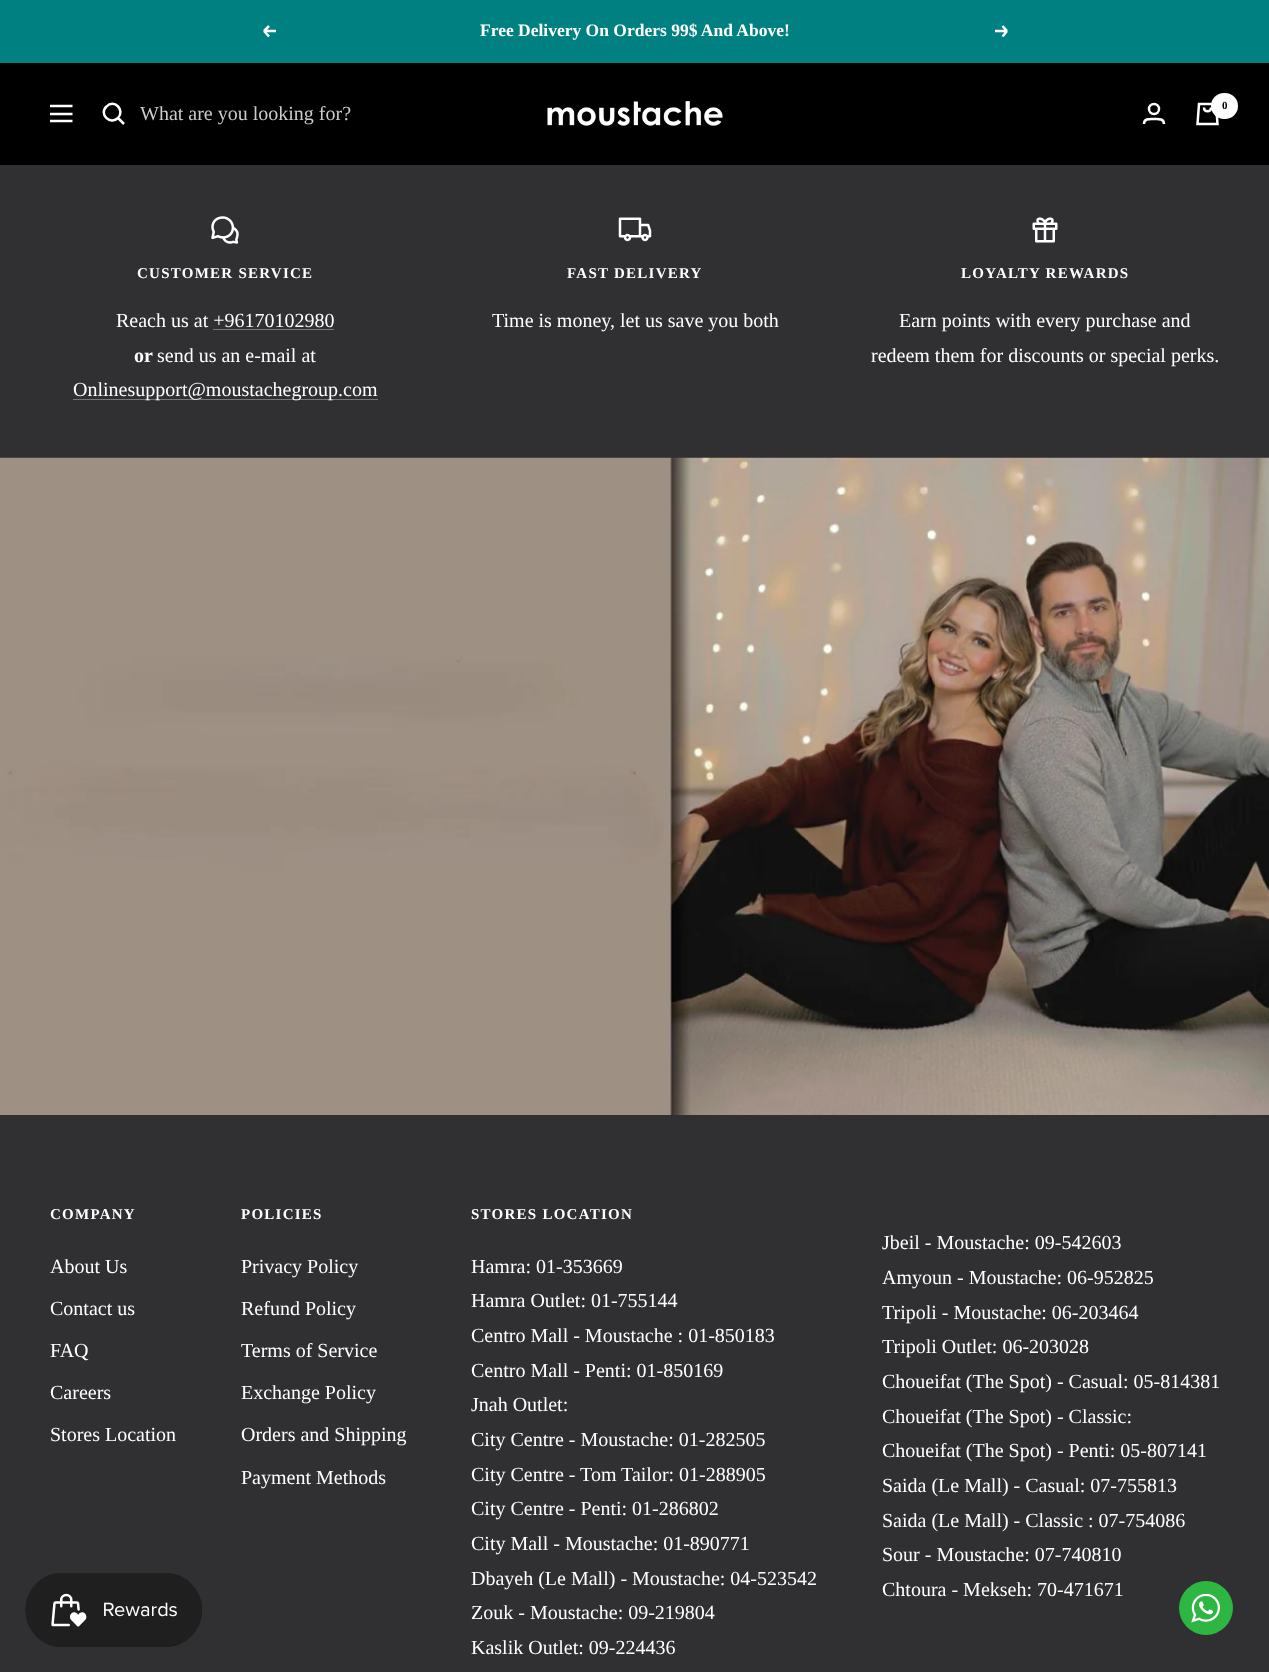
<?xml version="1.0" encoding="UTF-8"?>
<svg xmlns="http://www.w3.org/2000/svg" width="1269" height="1672">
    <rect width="100%" height="100%" fill="#302F31"/>
    <rect x="0" y="0" width="1269" height="63" fill="#008080"/>
    <path d="M 276 31 H 264 M 264 31 L 269 36.5 M 264 31 L 269 26" fill="none" stroke="#FFFFFF" stroke-width="2.5"/>
    <text x="480" y="36" font-family="Liberation Serif" font-size="17.5" font-weight="700" fill="#FFFFFF">Free Delivery On Orders 99$ And Above!</text>
    <path d="M 995 31 H 1007 M 1007 31 L 1002.5 36.5 M 1007 31 L 1002.5 26" fill="none" stroke="#FFFFFF" stroke-width="2.5"/>
    <rect x="0" y="63" width="1269" height="102" fill="#000000"/>
    <path d="M 50 106 H 72.5 M 50 121 H 72.5 Z M 50 114 H 72.5 Z" fill="none" stroke="#FFFFFF" stroke-width="2.5"/>
    <path d="M 118 118 C 125.5 110 114 98.5 106.5 106.5 C 98.5 114 110 125.5 118 118 Z M 118 118 L 124 124" fill="none" stroke="#FFFFFF" stroke-width="2.5"/>
    <text x="140" y="120" font-family="Liberation Serif" font-size="20" fill="#CCCCCC">What are you looking for?</text>
    <image x="547" y="101" width="176" height="25" href="img_01.png"/>
    <circle cx="1154" cy="109" r="5" fill="none" stroke="#FFFFFF" stroke-width="2.5"/>
    <path d="M 1144 124 C 1144 118 1150 119 1154 119 C 1157.5 119 1164 118 1164 124" fill="none" stroke="#FFFFFF" stroke-width="2.5"/>
    <path d="M 1199 104 H 1216 L 1217.5 124 H 1197.5 Z M 1204 107.5 C 1204 112.5 1211 112.5 1211 107.5" fill="none" stroke="#FFFFFF" stroke-width="2.5"/>
    <rect x="1211" y="93" width="27" height="26" rx="13" fill="#FFFFFF"/>
    <text x="1222" y="109" font-family="Liberation Serif" font-size="11" font-weight="700" fill="#000000">0</text>
    <image x="211" y="216" width="28" height="28" href="img_02.png"/>
    <text x="137" y="278" font-family="Liberation Serif" font-size="15" font-weight="700" letter-spacing="1.25" fill="#FFFFFF">CUSTOMER SERVICE</text>
    <text x="116" y="327" font-family="Liberation Serif" font-size="20" fill="#FFFFFF">Reach us at +96170102980</text>
    <rect x="213" y="329" width="121" height="1" fill="#787879"/>
    <text x="134" y="362" font-family="Liberation Serif" font-size="20" font-weight="700" fill="#FFFFFF">or</text>
    <text x="157" y="362" font-family="Liberation Serif" font-size="20" fill="#FFFFFF">send us an e-mail at</text>
    <rect x="73" y="399" width="305" height="1" fill="#787879"/>
    <text x="73" y="396" font-family="Liberation Serif" font-size="20" fill="#FFFFFF">Onlinesupport@moustachegroup.com</text>
    <image x="618" y="217" width="34" height="25" href="img_03.png"/>
    <text x="567" y="278" font-family="Liberation Serif" font-size="15" font-weight="700" letter-spacing="1.25" fill="#FFFFFF">FAST DELIVERY</text>
    <text x="492" y="327" font-family="Liberation Serif" font-size="20" fill="#FFFFFF">Time is money, let us save you both</text>
    <image x="1032" y="217" width="26" height="26" href="img_04.png"/>
    <text x="961" y="278" font-family="Liberation Serif" font-size="15" font-weight="700" letter-spacing="1.25" fill="#FFFFFF">LOYALTY REWARDS</text>
    <text x="899" y="327" font-family="Liberation Serif" font-size="20" fill="#FFFFFF">Earn points with every purchase and</text>
    <text x="871" y="362" font-family="Liberation Serif" font-size="20" fill="#FFFFFF">redeem them for discounts or special perks.</text>
    <image x="0" y="457" width="1269" height="658" href="img_05.png"/>
    <text x="50" y="1219" font-family="Liberation Serif" font-size="15" font-weight="700" letter-spacing="1.25" fill="#FFFFFF">COMPANY</text>
    <text x="50" y="1273" font-family="Liberation Serif" font-size="20" fill="#FFFFFF">About Us</text>
    <text x="50" y="1315" font-family="Liberation Serif" font-size="20" fill="#FFFFFF">Contact us</text>
    <text x="50" y="1357" font-family="Liberation Serif" font-size="20" fill="#FFFFFF">FAQ</text>
    <text x="50" y="1399" font-family="Liberation Serif" font-size="20" fill="#FFFFFF">Careers</text>
    <text x="50" y="1441" font-family="Liberation Serif" font-size="20" fill="#FFFFFF">Stores Location</text>
    <text x="241" y="1219" font-family="Liberation Serif" font-size="15" font-weight="700" letter-spacing="1.25" fill="#FFFFFF">POLICIES</text>
    <text x="241" y="1273" font-family="Liberation Serif" font-size="20" fill="#FFFFFF">Privacy Policy</text>
    <text x="241" y="1315" font-family="Liberation Serif" font-size="20" fill="#FFFFFF">Refund Policy</text>
    <text x="241" y="1357" font-family="Liberation Serif" font-size="20" fill="#FFFFFF">Terms of Service</text>
    <text x="241" y="1399" font-family="Liberation Serif" font-size="20" fill="#FFFFFF">Exchange Policy</text>
    <text x="241" y="1441" font-family="Liberation Serif" font-size="20" fill="#FFFFFF">Orders and Shipping</text>
    <text x="241" y="1484" font-family="Liberation Serif" font-size="20" fill="#FFFFFF">Payment Methods</text>
    <text x="471" y="1219" font-family="Liberation Serif" font-size="15" font-weight="700" letter-spacing="1.25" fill="#FFFFFF">STORES LOCATION</text>
    <text font-family="Liberation Serif" font-size="20" fill="#FFFFFF">
        <tspan x="471" y="1273">Hamra: 01-353669</tspan>
        <tspan x="471" y="1307">Hamra Outlet: 01-755144</tspan>
        <tspan x="471" y="1342">Centro Mall - Moustache : 01-850183</tspan>
        <tspan x="471" y="1377">Centro Mall - Penti: 01-850169</tspan>
        <tspan x="471" y="1411">Jnah Outlet:</tspan>
        <tspan x="471" y="1446">City Centre - Moustache: 01-282505</tspan>
        <tspan x="471" y="1481">City Centre - Tom Tailor: 01-288905</tspan>
        <tspan x="471" y="1515">City Centre - Penti: 01-286802</tspan>
        <tspan x="471" y="1550">City Mall - Moustache: 01-890771</tspan>
        <tspan x="471" y="1585">Dbayeh (Le Mall) - Moustache: 04-523542</tspan>
        <tspan x="471" y="1619">Zouk - Moustache: 09-219804</tspan>
        <tspan x="471" y="1654">Kaslik Outlet: 09-224436</tspan>
    </text>
    <text font-family="Liberation Serif" font-size="20" fill="#FFFFFF">
        <tspan x="882" y="1249">Jbeil - Moustache: 09-542603</tspan>
        <tspan x="882" y="1284">Amyoun - Moustache: 06-952825</tspan>
        <tspan x="882" y="1319">Tripoli - Moustache: 06-203464</tspan>
        <tspan x="882" y="1353">Tripoli Outlet: 06-203028</tspan>
        <tspan x="882" y="1388">Choueifat (The Spot) - Casual: 05-814381</tspan>
        <tspan x="882" y="1423">Choueifat (The Spot) - Classic:</tspan>
        <tspan x="882" y="1457">Choueifat (The Spot) - Penti: 05-807141</tspan>
        <tspan x="882" y="1492">Saida (Le Mall) - Casual: 07-755813</tspan>
        <tspan x="882" y="1527">Saida (Le Mall) - Classic : 07-754086</tspan>
        <tspan x="882" y="1561">Sour - Moustache: 07-740810</tspan>
        <tspan x="882" y="1596">Chtoura - Mekseh: 70-471671</tspan>
    </text>
    <image x="25" y="1573" width="177" height="74" href="img_06.png"/>
    <circle cx="1206" cy="1608" r="27" fill="#2DB742"/>
    <image x="1191" y="1594" width="29" height="29" href="img_07.png"/>
</svg>
